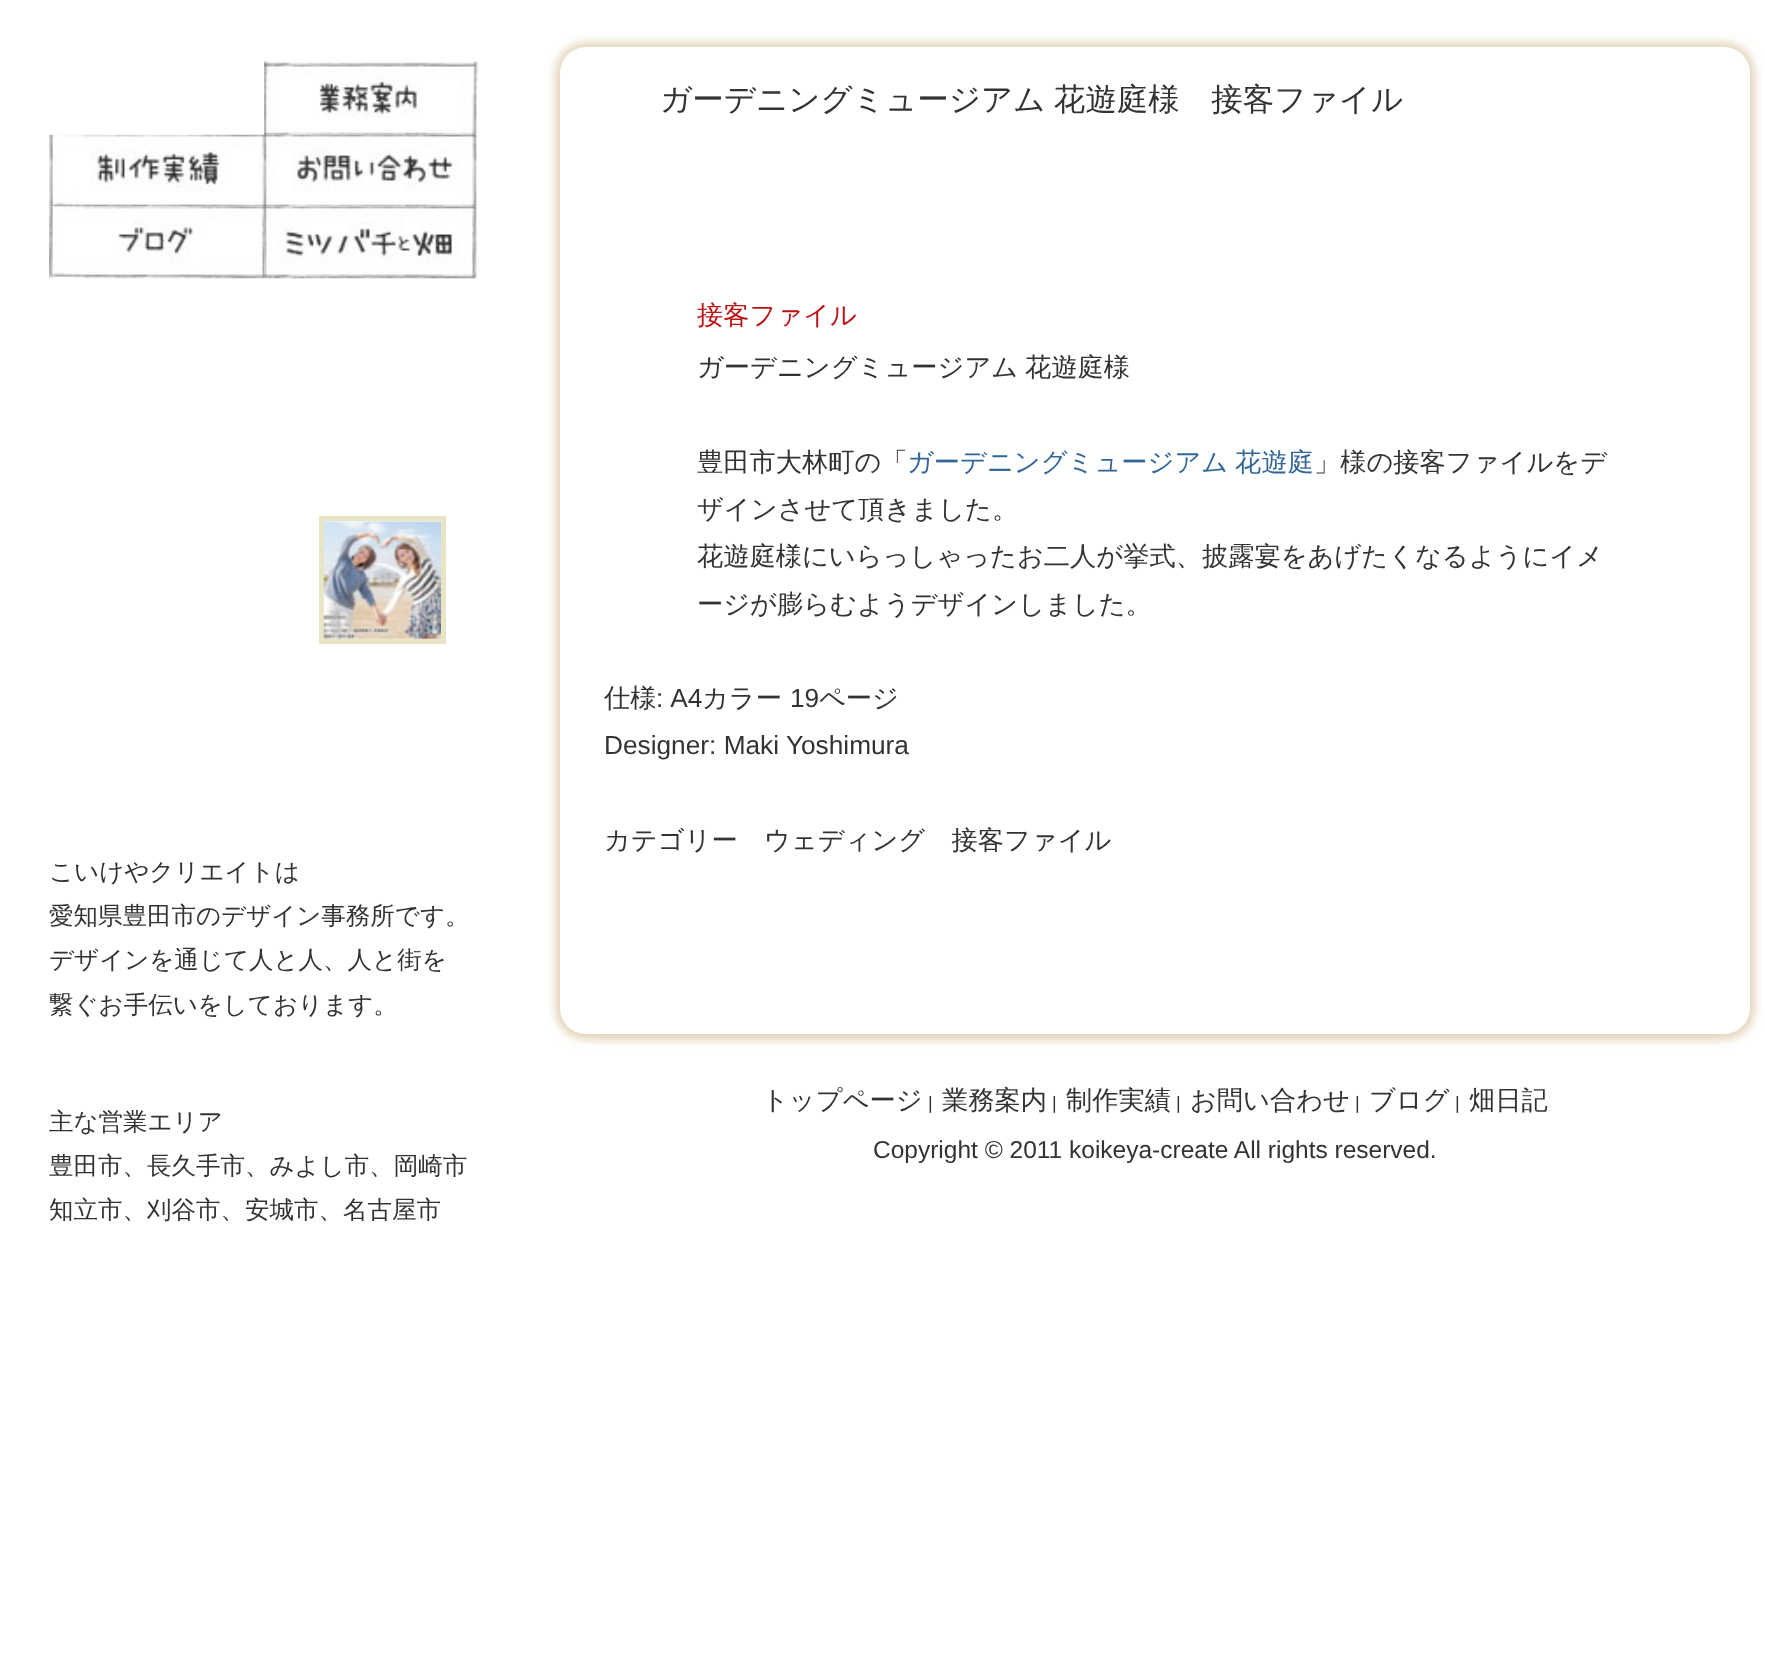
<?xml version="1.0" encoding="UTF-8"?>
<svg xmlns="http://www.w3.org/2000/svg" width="1765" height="1676">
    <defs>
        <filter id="blur1" x="-50%" y="-200%" width="200%" height="500%"><feGaussianBlur stdDeviation="4.5"/></filter>
    </defs>
    <rect width="100%" height="100%" fill="#FFFFFF"/>
    <rect x="555" y="42" width="1200" height="998" rx="32" fill="#E4D6BB" filter="url(#blur1)"/>
    <rect x="560" y="47" width="1190" height="987" rx="26" fill="#FFFFFF"/>
    <text x="660" y="110" word-spacing="-1" font-family="WenQuanYi Zen Hei" font-size="31.5" font-weight="500" fill="#333333">ガーデニングミュージアム 花遊庭様　接客ファイル</text>
    <text x="697" y="324" font-family="WenQuanYi Zen Hei" font-size="26.25" font-weight="500" fill="#BB1216">接客ファイル</text>
    <text x="697" y="376" word-spacing="-1" font-family="WenQuanYi Zen Hei" font-size="26.25" font-weight="500" fill="#333333">ガーデニングミュージアム 花遊庭様</text>
    <text x="697" y="471" font-family="WenQuanYi Zen Hei" font-size="26.25" font-weight="500" fill="#333333">豊田市大林町の「</text>
    <text x="907" y="471" word-spacing="-1" font-family="WenQuanYi Zen Hei" font-size="26.25" font-weight="500" fill="#336699">ガーデニングミュージアム 花遊庭</text>
    <text x="1314" y="471" font-family="WenQuanYi Zen Hei" font-size="26.25" font-weight="500" fill="#333333">」様の接客ファイルをデ</text>
    <text font-family="WenQuanYi Zen Hei" font-size="26.25" font-weight="500" fill="#333333">
        <tspan x="697" y="518">ザインさせて頂きました。</tspan>
        <tspan x="697" y="565">花遊庭様にいらっしゃったお二人が挙式、披露宴をあげたくなるようにイメ</tspan>
        <tspan x="697" y="613">ージが膨らむようデザインしました。</tspan>
    </text>
    <text x="604" y="707" font-family="WenQuanYi Zen Hei" font-size="26.25" font-weight="500" fill="#333333">仕様</text>
    <text x="656" y="707" word-spacing="1" font-family="Liberation Sans" font-size="26.25" fill="#333333">: A4</text>
    <text x="702" y="707" font-family="WenQuanYi Zen Hei" font-size="26.25" font-weight="500" fill="#333333">カラー</text>
    <text x="790" y="707" font-family="Liberation Sans" font-size="26.25" fill="#333333">19</text>
    <text x="819" y="707" font-family="WenQuanYi Zen Hei" font-size="26.25" font-weight="500" fill="#333333">ページ</text>
    <text x="604" y="754" font-family="Liberation Sans" font-size="26.25" fill="#333333">Designer: Maki Yoshimura</text>
    <text x="604" y="849" font-family="WenQuanYi Zen Hei" font-size="26.25" font-weight="500" fill="#333333">カテゴリー　ウェディング　接客ファイル</text>
    <image x="264" y="61" width="214" height="74" href="img_01.png"/>
    <image x="49" y="134" width="216" height="73" href="img_02.png"/>
    <image x="264" y="134" width="214" height="73" href="img_03.png"/>
    <image x="49" y="206" width="216" height="73" href="img_04.png"/>
    <image x="264" y="206" width="214" height="73" href="img_05.png"/>
    <rect x="321.5" y="518.5" width="122" height="123" fill="none" stroke="#E8E5C4" stroke-width="5"/>
    <image x="323" y="521" width="118" height="118" href="img_06.png"/>
    <text font-family="WenQuanYi Zen Hei" font-size="24.5" font-weight="500" fill="#333333">
        <tspan x="49" y="880">こいけやクリエイトは</tspan>
        <tspan x="49" y="924">愛知県豊田市のデザイン事務所です。</tspan>
        <tspan x="49" y="968">デザインを通じて人と人、人と街を</tspan>
        <tspan x="49" y="1013">繋ぐお手伝いをしております。</tspan>
    </text>
    <text font-family="WenQuanYi Zen Hei" font-size="24.5" font-weight="500" fill="#333333">
        <tspan x="49" y="1130">主な営業エリア</tspan>
        <tspan x="49" y="1174">豊田市、長久手市、みよし市、岡崎市</tspan>
        <tspan x="49" y="1218">知立市、刈谷市、安城市、名古屋市</tspan>
    </text>
    <text x="762" y="1109" font-family="WenQuanYi Zen Hei" font-size="26.25" font-weight="500" fill="#333333">トップページ</text>
    <text x="928" y="1109" font-family="Liberation Sans" font-size="18" fill="#333333">|</text>
    <text x="942" y="1109" font-family="WenQuanYi Zen Hei" font-size="26.25" font-weight="500" fill="#333333">業務案内</text>
    <text x="1052" y="1109" font-family="Liberation Sans" font-size="18" fill="#333333">|</text>
    <text x="1066" y="1109" font-family="WenQuanYi Zen Hei" font-size="26.25" font-weight="500" fill="#333333">制作実績</text>
    <text x="1176" y="1109" font-family="Liberation Sans" font-size="18" fill="#333333">|</text>
    <text x="1190" y="1109" font-family="WenQuanYi Zen Hei" font-size="26.25" font-weight="500" fill="#333333">お問い合わせ</text>
    <text x="1355" y="1109" font-family="Liberation Sans" font-size="18" fill="#333333">|</text>
    <text x="1369" y="1109" font-family="WenQuanYi Zen Hei" font-size="26.25" font-weight="500" fill="#333333">ブログ</text>
    <text x="1455" y="1109" font-family="Liberation Sans" font-size="18" fill="#333333">|</text>
    <text x="1469" y="1109" font-family="WenQuanYi Zen Hei" font-size="26.25" font-weight="500" fill="#333333">畑日記</text>
    <text x="873" y="1158" font-family="Liberation Sans" font-size="24.5" fill="#333333">Copyright © 2011 koikeya-create All rights reserved.</text>
</svg>
